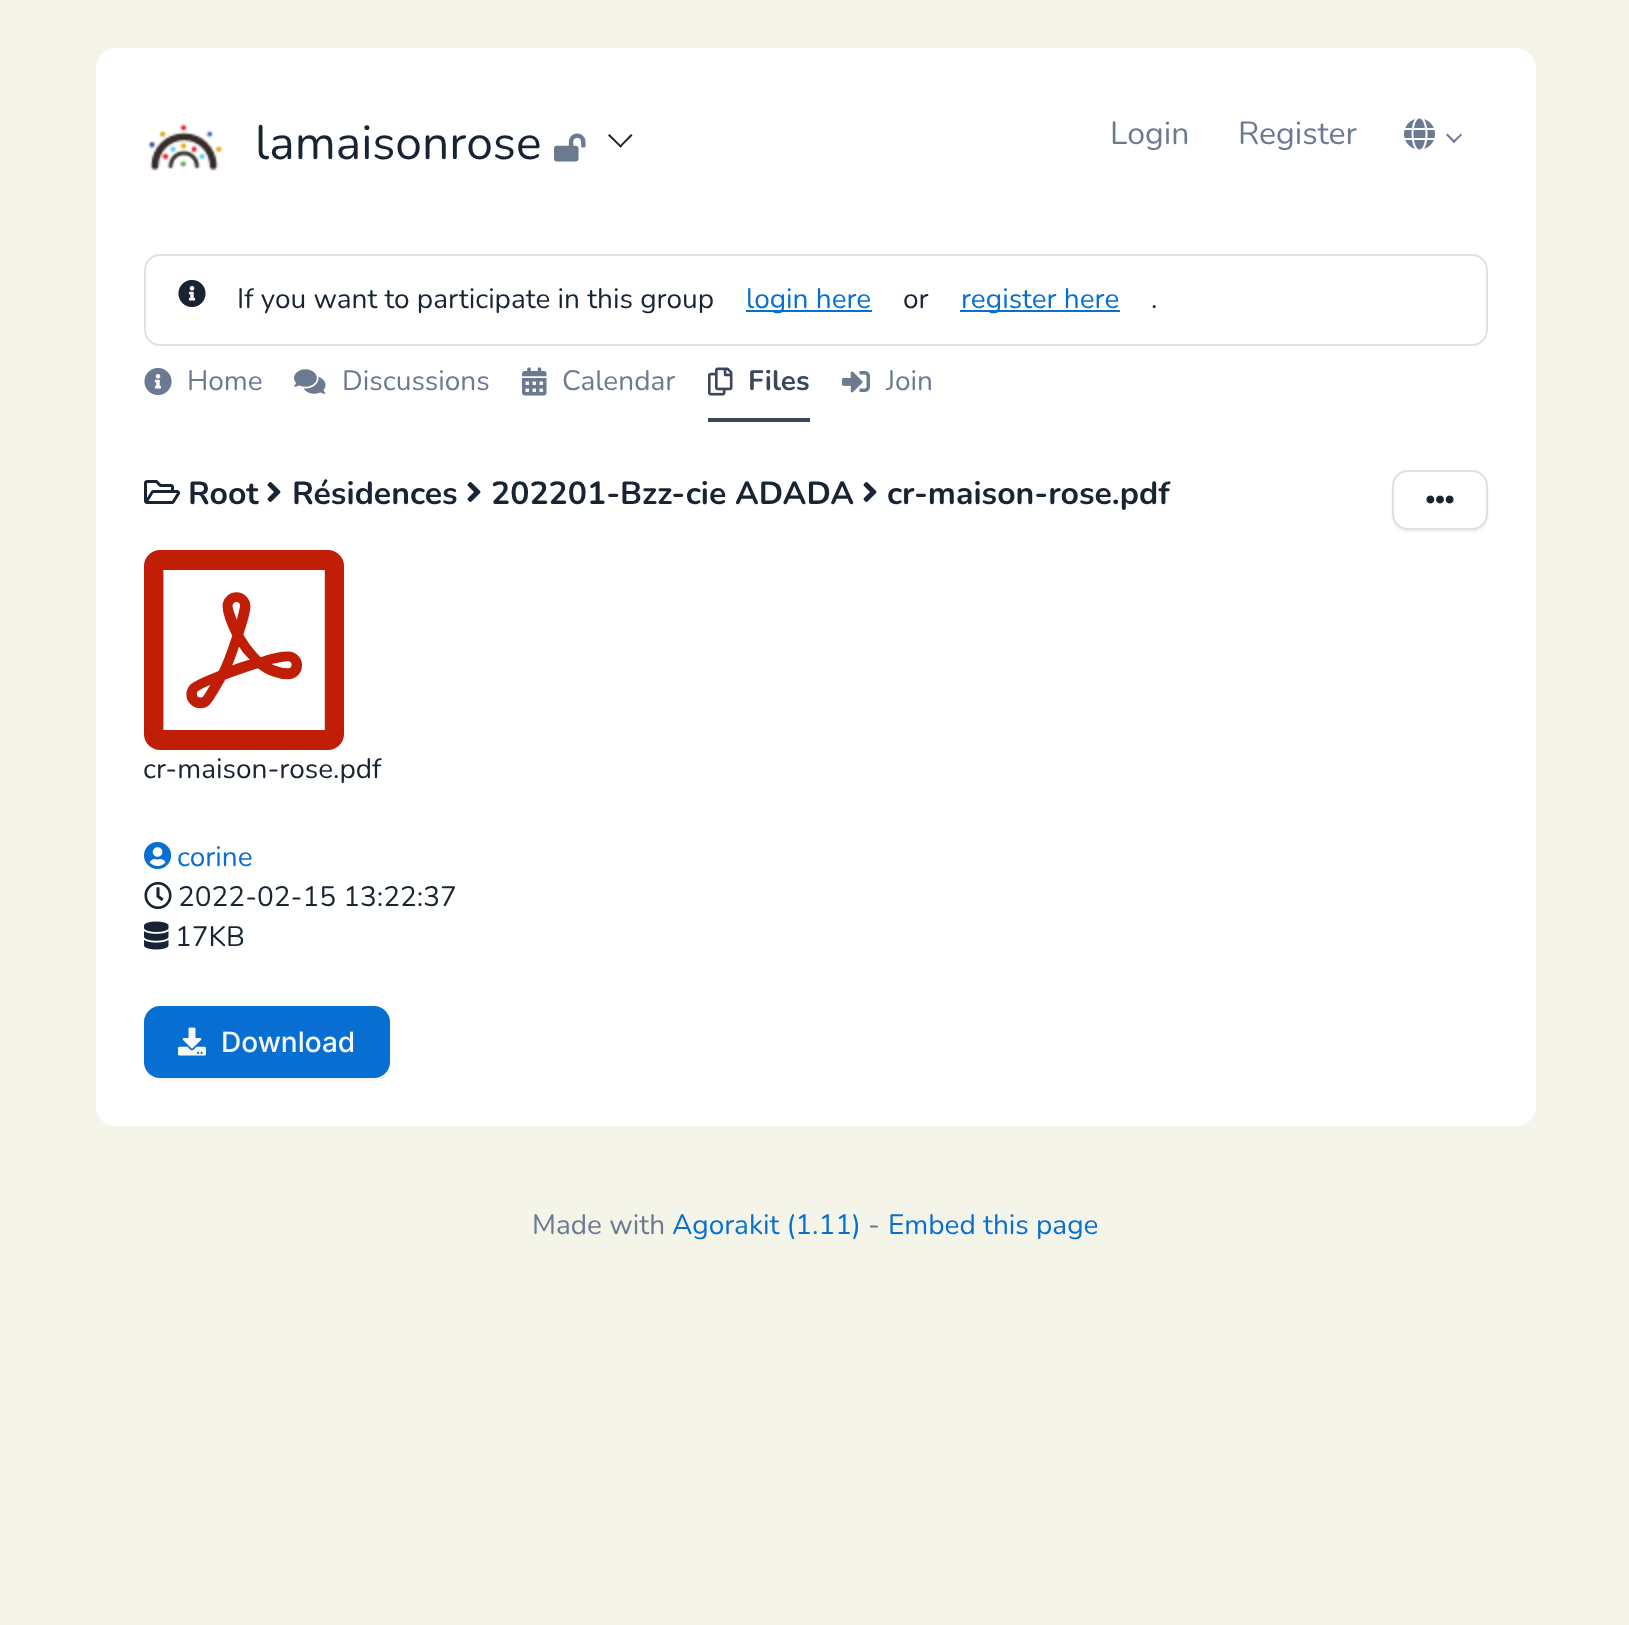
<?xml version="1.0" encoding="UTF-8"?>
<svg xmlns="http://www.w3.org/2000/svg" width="1629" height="1625">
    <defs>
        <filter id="blur1" x="-50%" y="-200%" width="200%" height="500%"><feGaussianBlur stdDeviation="1"/></filter>
    </defs>
    <rect width="100%" height="100%" fill="#F5F4E9"/>
    <rect x="96" y="48" width="1440" height="1078" rx="20" fill="#FFFFFF"/>
    <image x="147" y="123" width="76" height="48" href="img_01.png"/>
    <text x="255" y="159" font-family="Nunito" font-size="48" fill="#182433">lamaisonrose</text>
    <image x="554" y="133" width="32" height="29" href="img_02.png"/>
    <path d="M 619 146.5 L 631 134 L 632.5 135.5 L 620.5 147.5 Z" fill="#182433"/>
    <path d="M 608 135.5 L 609.5 134 L 622 146.5 L 620.5 147.5 Z" fill="#182433"/>
    <text x="1110" y="144" font-family="Nunito" font-size="32" fill="#6C7A91">Login</text>
    <text x="1238" y="144" font-family="Nunito" font-size="32" fill="#6C7A91">Register</text>
    <image x="1404" y="118" width="31" height="32" href="img_03.png"/>
    <path d="M 1452.5 141.5 L 1461 133.5 L 1462 135 L 1454 143 Z" fill="#6C7A91"/>
    <path d="M 1446 135 L 1447.5 133.5 L 1455.5 141.5 L 1454 143 Z" fill="#6C7A91"/>
    <rect x="145" y="255" width="1342" height="90" rx="15" fill="none" stroke="#DCE1E7" stroke-width="2"/>
    <image x="178" y="280" width="28" height="27" href="img_04.png"/>
    <text x="237" y="308" font-family="Nunito" font-size="28" fill="#182433">If you want to participate in this group</text>
    <rect x="746" y="310" width="126" height="2" fill="#066FD1"/>
    <text x="746" y="308" font-family="Nunito" font-size="28" fill="#066FD1">login here</text>
    <text x="903" y="308" font-family="Nunito" font-size="28" fill="#182433">or</text>
    <rect x="960" y="310" width="160" height="2" fill="#066FD1"/>
    <text x="961" y="308" font-family="Nunito" font-size="28" fill="#066FD1">register here</text>
    <text x="1151" y="308" font-family="Nunito" font-size="28" fill="#182433">.</text>
    <image x="144" y="368" width="28" height="27" href="img_05.png"/>
    <text x="187" y="390" font-family="Nunito" font-size="28" fill="#6C7A91">Home</text>
    <image x="294" y="369" width="32" height="25" href="img_06.png"/>
    <text x="342" y="390" font-family="Nunito" font-size="28" fill="#6C7A91">Discussions</text>
    <image x="522" y="367" width="25" height="29" href="img_07.png"/>
    <text x="562" y="390" font-family="Nunito" font-size="28" fill="#6C7A91">Calendar</text>
    <rect x="708" y="418" width="102" height="4" fill="#3A4859"/>
    <image x="708" y="367" width="25" height="29" href="img_08.png"/>
    <text x="748" y="390" font-family="Nunito" font-size="28" font-weight="700" fill="#3A4859">Files</text>
    <image x="842" y="371" width="28" height="22" href="img_09.png"/>
    <text x="886" y="390" font-family="Nunito" font-size="28" fill="#6C7A91">Join</text>
    <image x="144" y="480" width="36" height="24" href="img_10.png"/>
    <text x="188" y="504" font-family="Nunito" font-size="32" font-weight="700" fill="#182433">Root</text>
    <image x="267" y="482" width="14" height="20" href="img_11.png"/>
    <text x="292" y="504" font-family="Nunito" font-size="32" font-weight="700" fill="#182433">Résidences</text>
    <image x="467" y="482" width="14" height="20" href="img_11.png"/>
    <text x="491" y="504" font-family="Nunito" font-size="32" font-weight="700" fill="#182433">202201-Bzz-cie ADADA</text>
    <image x="863" y="482" width="14" height="20" href="img_11.png"/>
    <text x="887" y="504" font-family="Nunito" font-size="32" font-weight="700" fill="#182433">cr-maison-rose.pdf</text>
    <rect x="1392" y="472" width="96" height="60" rx="16" fill="#182433" fill-opacity="0.06" filter="url(#blur1)"/>
    <rect x="1393" y="471" width="94" height="58" rx="15" fill="#FFFFFF" stroke="#DCE1E7" stroke-width="2"/>
    <image x="1426" y="495" width="28" height="9" href="img_12.png"/>
    <image x="144" y="550" width="200" height="200" href="img_13.png"/>
    <text x="143" y="778" font-family="Nunito" font-size="28" fill="#182433">cr-maison-rose.pdf</text>
    <image x="144" y="841" width="28" height="29" href="img_14.png"/>
    <text x="177" y="866" font-family="Nunito" font-size="28" fill="#066FD1">corine</text>
    <image x="144" y="882" width="28" height="27" href="img_15.png"/>
    <text x="178" y="906" font-family="Nunito" font-size="28" fill="#182433">2022-02-15 13:22:37</text>
    <image x="144" y="921" width="25" height="29" href="img_16.png"/>
    <text x="175" y="946" font-family="Nunito" font-size="28" fill="#182433">17KB</text>
    <rect x="144" y="1008" width="246" height="72" rx="16" fill="#182433" fill-opacity="0.06" filter="url(#blur1)"/>
    <rect x="144" y="1006" width="246" height="72" rx="16" fill="#066FD1"/>
    <image x="178" y="1027" width="28" height="29" href="img_17.png"/>
    <text x="221" y="1052" font-family="Inter" font-size="28" font-weight="500" fill="#F6F8FB">Download</text>
    <text x="532" y="1234" font-family="Nunito" font-size="28" fill="#6C7A91">Made with</text>
    <text x="672" y="1234" font-family="Nunito" font-size="28" fill="#066FD1">Agorakit (1.11)</text>
    <text x="868" y="1234" font-family="Nunito" font-size="28" fill="#6C7A91">-</text>
    <text x="888" y="1234" font-family="Nunito" font-size="28" fill="#066FD1">Embed this page</text>
</svg>
